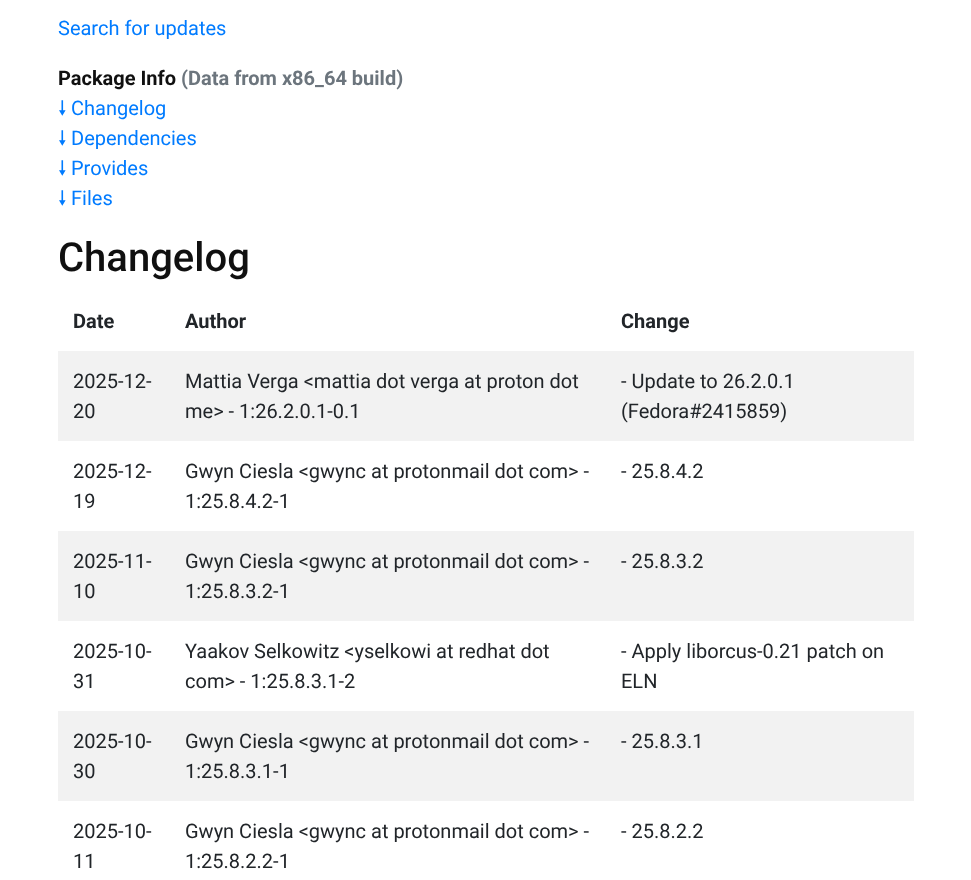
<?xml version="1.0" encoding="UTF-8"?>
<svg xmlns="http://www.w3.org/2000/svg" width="971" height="880">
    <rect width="100%" height="100%" fill="#FFFFFF"/>
    <text x="58" y="35" font-family="Roboto" font-size="20" fill="#007BFF">Search for updates</text>
    <text x="58" y="85" font-family="Roboto" font-size="20" font-weight="700" fill="#101010">Package Info</text>
    <text x="181" y="85" font-family="Roboto" font-size="20" font-weight="700" fill="#6C757D">(Data from x86_64 build)</text>
    <text x="58" y="115" font-family="'Noto Sans Symbols 2'" font-size="20" fill="#007BFF">🠗</text>
    <text x="71" y="115" font-family="Roboto" font-size="20" fill="#007BFF">Changelog</text>
    <text x="58" y="145" font-family="'Noto Sans Symbols 2'" font-size="20" fill="#007BFF">🠗</text>
    <text x="71" y="145" font-family="Roboto" font-size="20" fill="#007BFF">Dependencies</text>
    <text x="58" y="175" font-family="'Noto Sans Symbols 2'" font-size="20" fill="#007BFF">🠗</text>
    <text x="71" y="175" font-family="Roboto" font-size="20" fill="#007BFF">Provides</text>
    <text x="58" y="205" font-family="'Noto Sans Symbols 2'" font-size="20" fill="#007BFF">🠗</text>
    <text x="71" y="205" font-family="Roboto" font-size="20" fill="#007BFF">Files</text>
    <text x="58" y="271" font-family="Roboto" font-size="40" font-weight="500" fill="#101010">Changelog</text>
    <text x="73" y="328" font-family="Roboto" font-size="20" font-weight="700" fill="#212529">Date</text>
    <text x="185" y="328" font-family="Roboto" font-size="20" font-weight="700" fill="#212529">Author</text>
    <text x="621" y="328" font-family="Roboto" font-size="20" font-weight="700" fill="#212529">Change</text>
    <rect x="58" y="351" width="856" height="90" fill="#F2F2F2"/>
    <text font-family="Roboto" font-size="20" fill="#212529">
        <tspan x="73" y="388">2025-12-</tspan>
        <tspan x="73" y="418">20</tspan>
    </text>
    <text font-family="Roboto" font-size="20" fill="#212529">
        <tspan x="185" y="388">Mattia Verga &lt;mattia dot verga at proton dot</tspan>
        <tspan x="185" y="418">me&gt; - 1:26.2.0.1-0.1</tspan>
    </text>
    <text font-family="Roboto" font-size="20" fill="#212529">
        <tspan x="621" y="388">- Update to 26.2.0.1</tspan>
        <tspan x="621" y="418">(Fedora#2415859)</tspan>
    </text>
    <text font-family="Roboto" font-size="20" fill="#212529">
        <tspan x="73" y="478">2025-12-</tspan>
        <tspan x="73" y="508">19</tspan>
    </text>
    <text font-family="Roboto" font-size="20" fill="#212529">
        <tspan x="185" y="478">Gwyn Ciesla &lt;gwync at protonmail dot com&gt; -</tspan>
        <tspan x="185" y="508">1:25.8.4.2-1</tspan>
    </text>
    <text x="621" y="478" font-family="Roboto" font-size="20" fill="#212529">- 25.8.4.2</text>
    <rect x="58" y="531" width="856" height="90" fill="#F2F2F2"/>
    <text font-family="Roboto" font-size="20" fill="#212529">
        <tspan x="73" y="568">2025-11-</tspan>
        <tspan x="73" y="598">10</tspan>
    </text>
    <text font-family="Roboto" font-size="20" fill="#212529">
        <tspan x="185" y="568">Gwyn Ciesla &lt;gwync at protonmail dot com&gt; -</tspan>
        <tspan x="185" y="598">1:25.8.3.2-1</tspan>
    </text>
    <text x="621" y="568" font-family="Roboto" font-size="20" fill="#212529">- 25.8.3.2</text>
    <text font-family="Roboto" font-size="20" fill="#212529">
        <tspan x="73" y="658">2025-10-</tspan>
        <tspan x="73" y="688">31</tspan>
    </text>
    <text font-family="Roboto" font-size="20" fill="#212529">
        <tspan x="185" y="658">Yaakov Selkowitz &lt;yselkowi at redhat dot</tspan>
        <tspan x="185" y="688">com&gt; - 1:25.8.3.1-2</tspan>
    </text>
    <text font-family="Roboto" font-size="20" fill="#212529">
        <tspan x="621" y="658">- Apply liborcus-0.21 patch on</tspan>
        <tspan x="621" y="688">ELN</tspan>
    </text>
    <rect x="58" y="711" width="856" height="90" fill="#F2F2F2"/>
    <text font-family="Roboto" font-size="20" fill="#212529">
        <tspan x="73" y="748">2025-10-</tspan>
        <tspan x="73" y="778">30</tspan>
    </text>
    <text font-family="Roboto" font-size="20" fill="#212529">
        <tspan x="185" y="748">Gwyn Ciesla &lt;gwync at protonmail dot com&gt; -</tspan>
        <tspan x="185" y="778">1:25.8.3.1-1</tspan>
    </text>
    <text x="621" y="748" font-family="Roboto" font-size="20" fill="#212529">- 25.8.3.1</text>
    <text font-family="Roboto" font-size="20" fill="#212529">
        <tspan x="73" y="838">2025-10-</tspan>
        <tspan x="73" y="868">11</tspan>
    </text>
    <text font-family="Roboto" font-size="20" fill="#212529">
        <tspan x="185" y="838">Gwyn Ciesla &lt;gwync at protonmail dot com&gt; -</tspan>
        <tspan x="185" y="868">1:25.8.2.2-1</tspan>
    </text>
    <text x="621" y="838" font-family="Roboto" font-size="20" fill="#212529">- 25.8.2.2</text>
</svg>
